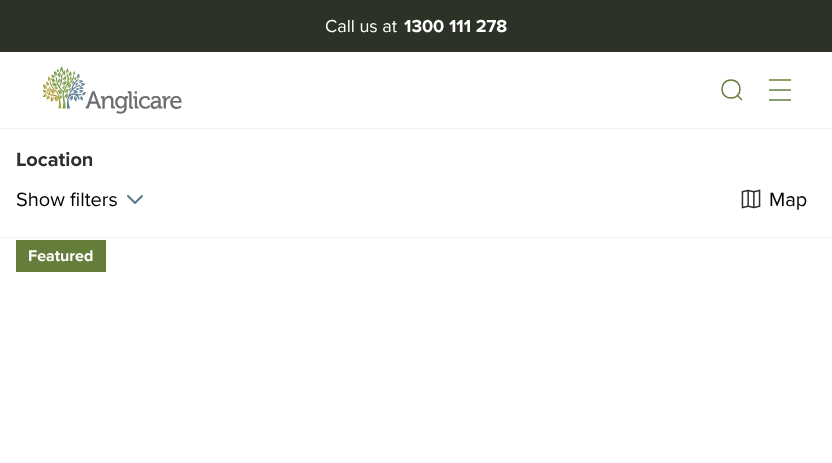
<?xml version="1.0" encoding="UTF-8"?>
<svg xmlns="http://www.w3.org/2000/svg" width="832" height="463">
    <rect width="100%" height="100%" fill="#FFFFFF"/>
    <rect x="0" y="128" width="832" height="1" fill="#EEF2F4"/>
    <rect x="0" y="0" width="832" height="52" fill="#2D3226"/>
    <text x="325" y="32" font-family="Proxima Nova" font-size="18" fill="#FFFFFF">Call us at</text>
    <text x="404" y="32" font-family="Proxima Nova" font-size="18" font-weight="700" fill="#FFFFFF">1300 111 278</text>
    <image x="42" y="66" width="140" height="48" href="img_01.png"/>
    <path d="M 731 98 C 743 98 743 80 731 80 C 719 80 719 98 731 98 Z M 737.5 95.5 L 742 100" fill="none" stroke="#647D3B" stroke-width="1.5"/>
    <rect x="769" y="79" width="22" height="2" fill="#8B9E6C"/>
    <rect x="769" y="89" width="22" height="2" fill="#8B9E6C"/>
    <rect x="769" y="99" width="22" height="2" fill="#8B9E6C"/>
    <rect x="0" y="237" width="832" height="1" fill="#EEF2F4"/>
    <text x="16" y="166" font-family="Proxima Nova" font-size="20" font-weight="700" fill="#2E2E2E">Location</text>
    <text x="16" y="206" font-family="Proxima Nova" font-size="20" fill="#000000">Show filters</text>
    <path d="M 142 196 L 135 203 L 128 196" fill="none" stroke="#57798E" stroke-width="2" stroke-linecap="round" stroke-linejoin="round"/>
    <image x="741" y="189" width="20" height="20" href="img_02.png"/>
    <text x="769" y="206" font-family="Proxima Nova" font-size="20" fill="#000000">Map</text>
    <rect x="16" y="240" width="90" height="32" fill="#647D3B"/>
    <text x="28" y="261" font-family="Proxima Nova" font-size="16" font-weight="700" fill="#FFFFFF">Featured</text>
</svg>
